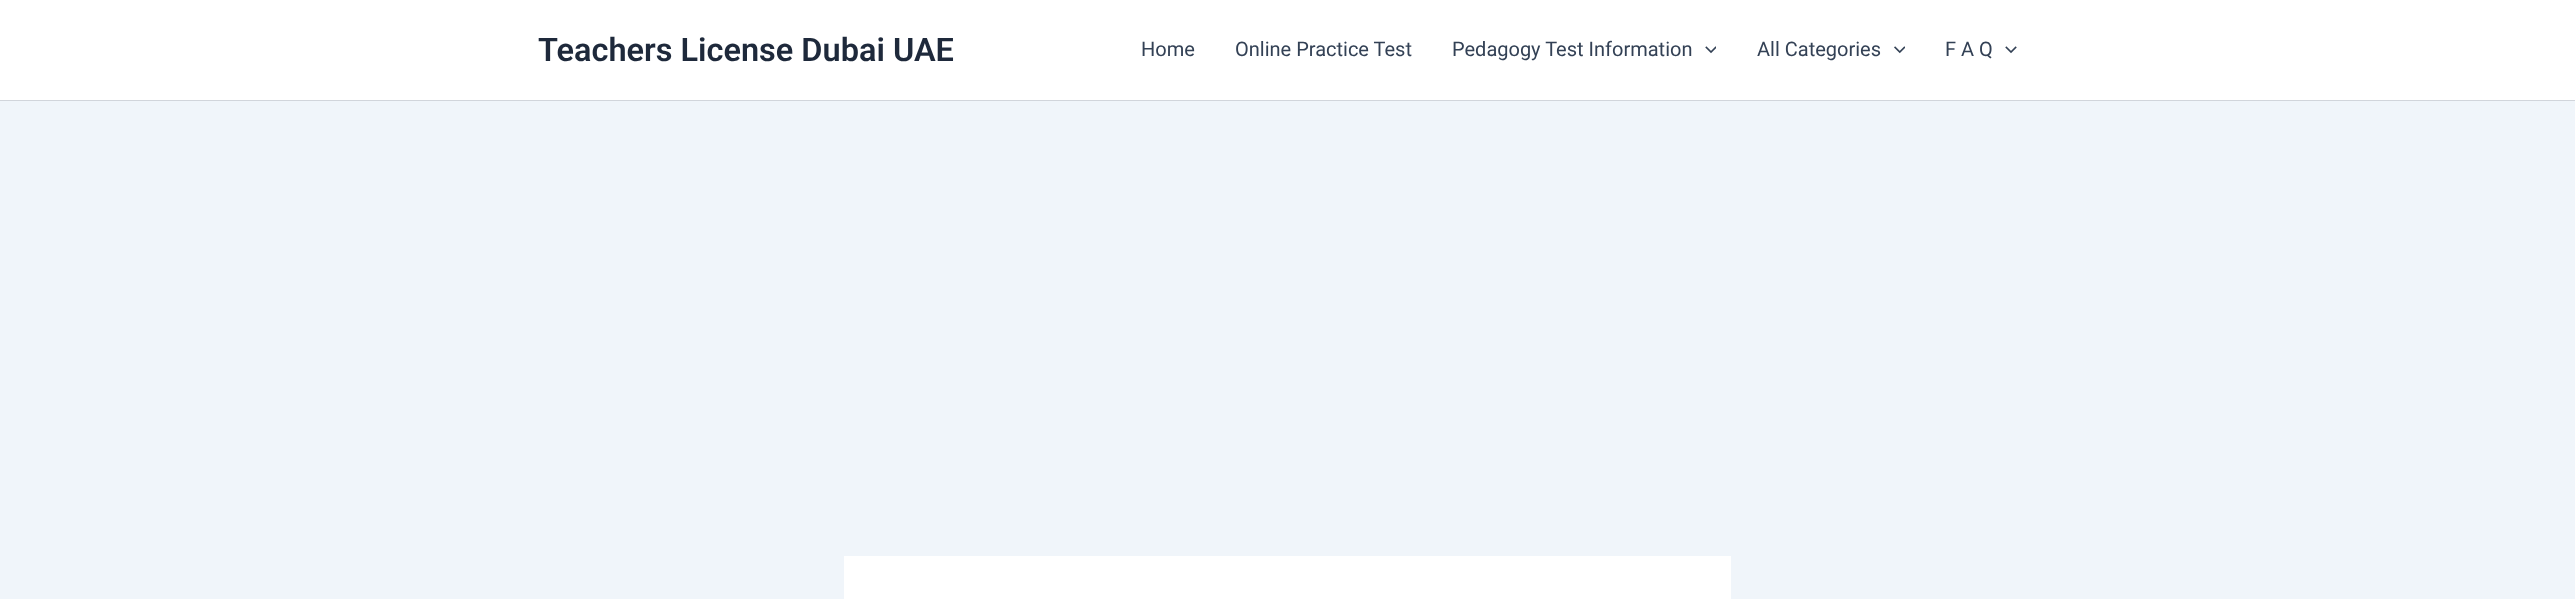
<?xml version="1.0" encoding="UTF-8"?>
<svg xmlns="http://www.w3.org/2000/svg" width="2575" height="599">
    <rect width="100%" height="100%" fill="#F0F5FA"/>
    <rect x="0" y="0" width="2575" height="100" fill="#FFFFFF"/>
    <rect x="0" y="100" width="2575" height="1" fill="#D1D5DB"/>
    <text x="538" y="61" font-family="Roboto" font-size="32.5" font-weight="600" fill="#1E293B">Teachers License Dubai UAE</text>
    <text x="1141" y="56" font-family="Roboto" font-size="20" fill="#334155">Home</text>
    <text x="1235" y="56" font-family="Roboto" font-size="20" fill="#334155">Online Practice Test</text>
    <text x="1452" y="56" font-family="Roboto" font-size="20" fill="#334155">Pedagogy Test Information</text>
    <image x="1705" y="46" width="11" height="8" href="img_01.png"/>
    <text x="1757" y="56" font-family="Roboto" font-size="20" fill="#334155">All Categories</text>
    <image x="1894" y="46" width="11" height="8" href="img_02.png"/>
    <text x="1945" y="56" font-family="Roboto" font-size="20" fill="#334155">F A Q</text>
    <image x="2005" y="46" width="12" height="8" href="img_03.png"/>
    <rect x="844" y="556" width="887" height="43" fill="#FFFFFF"/>
</svg>
